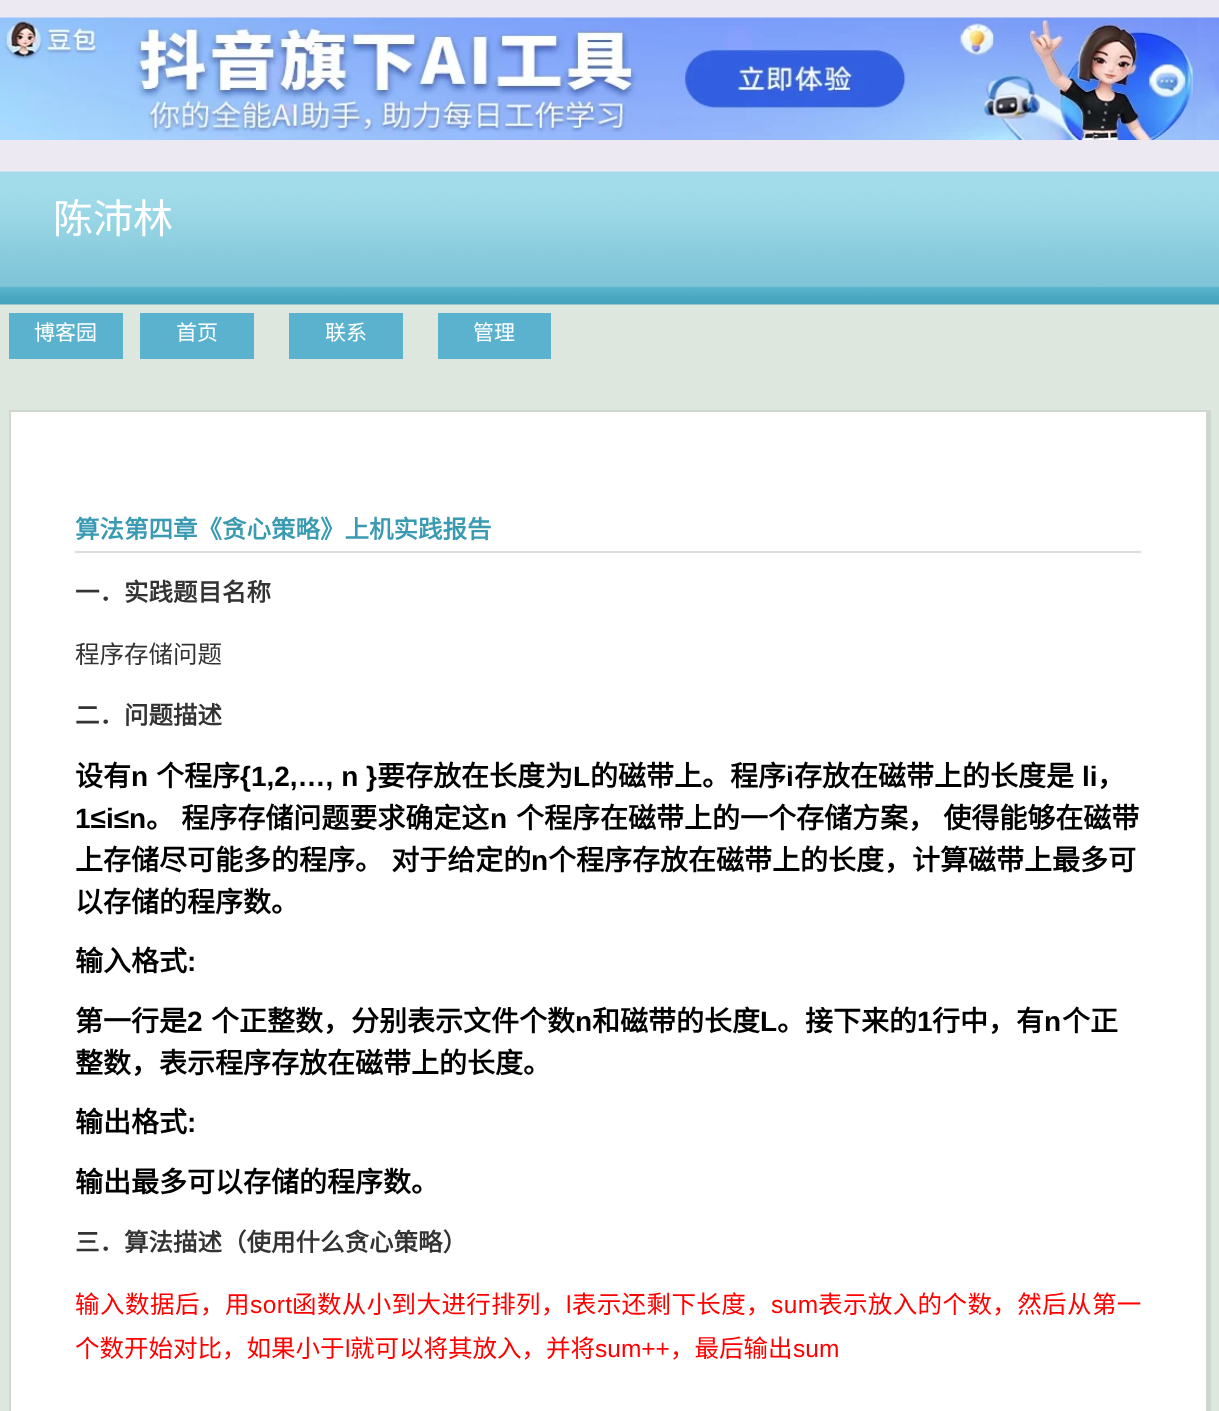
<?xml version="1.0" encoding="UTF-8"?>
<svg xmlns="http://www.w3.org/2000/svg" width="1219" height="1411">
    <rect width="100%" height="100%" fill="#DEE7DE"/>
    <rect x="0" y="0" width="1219" height="172" fill="#EDE9F2"/>
    <image x="0" y="17" width="1219" height="123" href="img_01.png"/>
    <image x="0" y="171" width="1219" height="134" href="img_02.png"/>
    <text x="53" y="233" font-family="Noto Sans CJK SC" font-size="40" fill="#FFFFFF">陈沛林</text>
    <rect x="9" y="313" width="114" height="46" fill="#5AB2CE"/>
    <text x="34" y="340" font-family="Noto Sans CJK SC" font-size="21" fill="#FFFFFF">博客园</text>
    <rect x="140" y="313" width="114" height="46" fill="#5AB2CE"/>
    <text x="176" y="340" font-family="Noto Sans CJK SC" font-size="21" fill="#FFFFFF">首页</text>
    <rect x="289" y="313" width="114" height="46" fill="#5AB2CE"/>
    <text x="325" y="340" font-family="Noto Sans CJK SC" font-size="21" fill="#FFFFFF">联系</text>
    <rect x="438" y="313" width="113" height="46" fill="#5AB2CE"/>
    <text x="473" y="340" font-family="Noto Sans CJK SC" font-size="21" fill="#FFFFFF">管理</text>
    <rect x="11" y="412" width="1195" height="999" fill="#FFFFFF"/>
    <rect x="9" y="410" width="1202" height="2" fill="#CED7CE"/>
    <rect x="1206" y="410" width="5" height="1001" fill="#CED7CE"/>
    <rect x="9" y="410" width="2" height="1001" fill="#CED7CE"/>
    <rect x="75" y="551" width="1066" height="2" fill="#DDDDDD"/>
    <text x="75" y="538" font-family="Noto Sans CJK SC" font-size="24.5" font-weight="700" fill="#399AB2">算法第四章《贪心策略》上机实践报告</text>
    <text x="75" y="601" font-family="Noto Sans CJK SC" font-size="24.5" font-weight="700" fill="#333333">一．实践题目名称</text>
    <text x="75" y="663" font-family="Noto Sans CJK SC" font-size="24.5" fill="#333333">程序存储问题</text>
    <text x="75" y="724" font-family="Noto Sans CJK SC" font-size="24.5" font-weight="700" fill="#333333">二．问题描述</text>
    <text x="75" y="786" font-family="Noto Sans CJK SC" font-size="28" font-weight="700" fill="#000000">设有</text>
    <text x="131" y="786" font-family="Liberation Sans" font-size="28" font-weight="700" fill="#000000">n</text>
    <text x="156" y="786" font-family="Noto Sans CJK SC" font-size="28" font-weight="700" fill="#000000">个程序</text>
    <text x="240" y="786" font-family="Liberation Sans" font-size="28" font-weight="700" fill="#000000">{1,2,…, n }</text>
    <text x="377" y="786" font-family="Noto Sans CJK SC" font-size="28" font-weight="700" fill="#000000">要存放在长度为</text>
    <text x="573" y="786" font-family="Liberation Sans" font-size="28" font-weight="700" fill="#000000">L</text>
    <text x="590" y="786" font-family="Noto Sans CJK SC" font-size="28" font-weight="700" fill="#000000">的磁带上。程序</text>
    <text x="786" y="786" font-family="Liberation Sans" font-size="28" font-weight="700" fill="#000000">i</text>
    <text x="794" y="786" font-family="Noto Sans CJK SC" font-size="28" font-weight="700" fill="#000000">存放在磁带上的长度是</text>
    <text x="1082" y="786" font-family="Liberation Sans" font-size="28" font-weight="700" fill="#000000">li</text>
    <text x="1097" y="786" font-family="Noto Sans CJK SC" font-size="28" font-weight="700" fill="#000000">，</text>
    <text x="75" y="828" font-family="Liberation Sans" font-size="28" font-weight="700" fill="#000000">1≤i≤n</text>
    <text x="146" y="828" word-spacing="1" font-family="Noto Sans CJK SC" font-size="28" font-weight="700" fill="#000000">。 程序存储问题要求确定这</text>
    <text x="490" y="828" font-family="Liberation Sans" font-size="28" font-weight="700" fill="#000000">n</text>
    <text x="516" y="828" word-spacing="1" font-family="Noto Sans CJK SC" font-size="28" font-weight="700" fill="#000000">个程序在磁带上的一个存储方案， 使得能够在磁带</text>
    <text x="75" y="870" word-spacing="2" font-family="Noto Sans CJK SC" font-size="28" font-weight="700" fill="#000000">上存储尽可能多的程序。 对于给定的</text>
    <text x="531" y="870" font-family="Liberation Sans" font-size="28" font-weight="700" fill="#000000">n</text>
    <text x="548" y="870" font-family="Noto Sans CJK SC" font-size="28" font-weight="700" fill="#000000">个程序存放在磁带上的长度，计算磁带上最多可</text>
    <text x="75" y="912" font-family="Noto Sans CJK SC" font-size="28" font-weight="700" fill="#000000">以存储的程序数。</text>
    <text x="75" y="971" font-family="Noto Sans CJK SC" font-size="28" font-weight="700" fill="#000000">输入格式</text>
    <text x="187" y="971" font-family="Liberation Sans" font-size="28" font-weight="700" fill="#000000">:</text>
    <text x="75" y="1031" font-family="Noto Sans CJK SC" font-size="28" font-weight="700" fill="#000000">第一行是</text>
    <text x="187" y="1031" font-family="Liberation Sans" font-size="28" font-weight="700" fill="#000000">2</text>
    <text x="211" y="1031" font-family="Noto Sans CJK SC" font-size="28" font-weight="700" fill="#000000">个正整数，分别表示文件个数</text>
    <text x="575" y="1031" font-family="Liberation Sans" font-size="28" font-weight="700" fill="#000000">n</text>
    <text x="592" y="1031" font-family="Noto Sans CJK SC" font-size="28" font-weight="700" fill="#000000">和磁带的长度</text>
    <text x="760" y="1031" font-family="Liberation Sans" font-size="28" font-weight="700" fill="#000000">L</text>
    <text x="777" y="1031" font-family="Noto Sans CJK SC" font-size="28" font-weight="700" fill="#000000">。接下来的</text>
    <text x="917" y="1031" font-family="Liberation Sans" font-size="28" font-weight="700" fill="#000000">1</text>
    <text x="932" y="1031" font-family="Noto Sans CJK SC" font-size="28" font-weight="700" fill="#000000">行中，有</text>
    <text x="1044" y="1031" font-family="Liberation Sans" font-size="28" font-weight="700" fill="#000000">n</text>
    <text x="1062" y="1031" font-family="Noto Sans CJK SC" font-size="28" font-weight="700" fill="#000000">个正</text>
    <text x="75" y="1073" font-family="Noto Sans CJK SC" font-size="28" font-weight="700" fill="#000000">整数，表示程序存放在磁带上的长度。</text>
    <text x="75" y="1132" font-family="Noto Sans CJK SC" font-size="28" font-weight="700" fill="#000000">输出格式</text>
    <text x="187" y="1132" font-family="Liberation Sans" font-size="28" font-weight="700" fill="#000000">:</text>
    <text x="75" y="1192" font-family="Noto Sans CJK SC" font-size="28" font-weight="700" fill="#000000">输出最多可以存储的程序数。</text>
    <text x="75" y="1251" font-family="Noto Sans CJK SC" font-size="24.5" font-weight="700" fill="#333333">三．算法描述（使用什么贪心策略）</text>
    <text x="75" y="1313" font-family="Noto Sans CJK SC" font-size="24.5" letter-spacing="0.5" fill="#FF0000">输入数据后，用</text>
    <text x="292" y="1313" font-family="Noto Sans CJK SC" font-size="24.5" letter-spacing="0.4" fill="#FF0000">函数从小到大进行排列， 表示还剩下长度，</text>
    <text x="818" y="1313" font-family="Noto Sans CJK SC" font-size="24.5" letter-spacing="0.4" fill="#FF0000">表示放入的个数，然后从第一</text>
    <text x="250" y="1313" font-family="Liberation Sans" font-size="24.5" letter-spacing="0.4" fill="#FF0000">sort</text>
    <text x="566" y="1313" font-family="Liberation Sans" font-size="24.5" letter-spacing="0.4" fill="#FF0000">l</text>
    <text x="771" y="1313" font-family="Liberation Sans" font-size="24.5" letter-spacing="0.4" fill="#FF0000">sum</text>
    <text x="75" y="1357" font-family="Noto Sans CJK SC" font-size="24.5" fill="#FF0000">个数开始对比，如果小于 就可以将其放入，并将</text>
    <text x="670" y="1357" font-family="Noto Sans CJK SC" font-size="24.5" fill="#FF0000">，最后输出</text>
    <text x="345" y="1357" font-family="Liberation Sans" font-size="24.5" fill="#FF0000">l</text>
    <text x="595" y="1357" font-family="Liberation Sans" font-size="24.5" fill="#FF0000">sum++</text>
    <text x="793" y="1357" font-family="Liberation Sans" font-size="24.5" fill="#FF0000">sum</text>
</svg>
